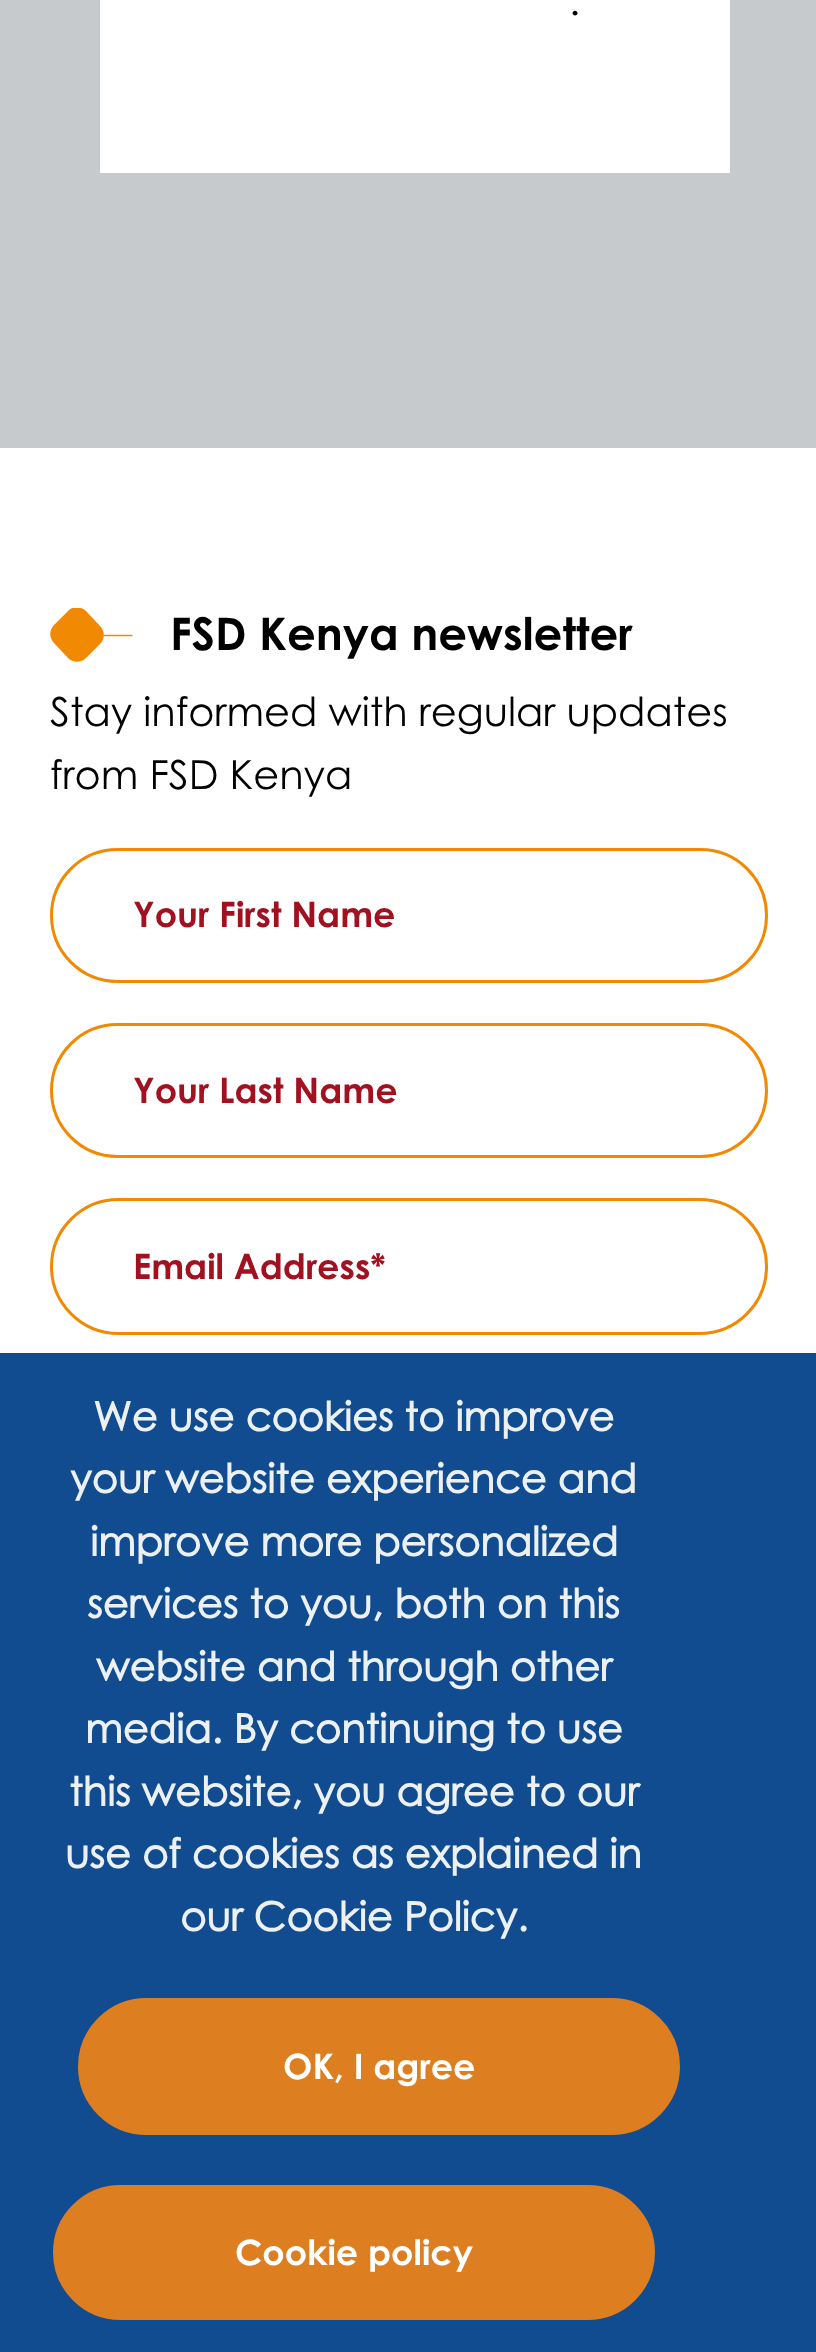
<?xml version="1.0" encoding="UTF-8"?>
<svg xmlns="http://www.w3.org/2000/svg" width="816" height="2352">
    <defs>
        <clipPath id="clip1"><rect x="50" y="608" width="83" height="55"/></clipPath>
    </defs>
    <rect width="100%" height="100%" fill="#FFFFFF"/>
    <rect x="0" y="0" width="816" height="448" fill="#C7CACC"/>
    <rect x="100" y="0" width="630" height="173" fill="#FFFFFF"/>
    <text x="569" y="15" font-family="Century Gothic" font-size="40" fill="#000000">.</text>
    <g clip-path="url(#clip1)">
        <path d="M 68 611 C 72 606 81 606 86 611 L 100 626 C 105 631 105 639 100 644 L 86 658 C 81 663 73 663 68 658 L 54 643 C 49 638 49 630 54 625 Z" fill="#F18903"/>
    </g>
    <path d="M 99 635.5 H 132.5" fill="none" stroke="#F18903" stroke-width="1.7"/>
    <text x="170" y="650" font-family="Century Gothic" font-size="45" font-weight="700" fill="#000000">FSD Kenya newsletter</text>
    <text font-family="Century Gothic" font-size="40" fill="#000000">
        <tspan x="50" y="726">Stay informed with regular updates</tspan>
        <tspan x="50" y="789">from FSD Kenya</tspan>
    </text>
    <rect x="51.5" y="849.5" width="715" height="132" rx="66" fill="none" stroke="#F18903" stroke-width="3"/>
    <text x="133" y="927" font-family="Century Gothic" font-size="35" font-weight="700" fill="#A11120">Your First Name</text>
    <rect x="51.5" y="1024.5" width="715" height="132" rx="66" fill="none" stroke="#F18903" stroke-width="3"/>
    <text x="133" y="1103" font-family="Century Gothic" font-size="35" font-weight="700" fill="#A11120">Your Last Name</text>
    <rect x="51.5" y="1199.5" width="715" height="134" rx="67" fill="none" stroke="#F18903" stroke-width="3"/>
    <text x="133" y="1279" font-family="Century Gothic" font-size="35" font-weight="700" fill="#A11120">Email Address*</text>
    <rect x="0" y="1353" width="816" height="999" fill="#114C90"/>
    <text x="93" y="1431" font-family="'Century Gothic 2'" font-size="40" font-weight="700" fill="#ECF0F1">We use cookies to improve</text>
    <text x="70" y="1493" font-family="'Century Gothic 2'" font-size="40" font-weight="700" fill="#ECF0F1">your website experience and</text>
    <text x="90" y="1556" font-family="'Century Gothic 2'" font-size="40" font-weight="700" fill="#ECF0F1">improve more personalized</text>
    <text x="87" y="1618" font-family="'Century Gothic 2'" font-size="40" font-weight="700" fill="#ECF0F1">services to you, both on this</text>
    <text x="96" y="1681" font-family="'Century Gothic 2'" font-size="40" font-weight="700" fill="#ECF0F1">website and through other</text>
    <text x="85" y="1743" font-family="'Century Gothic 2'" font-size="40" font-weight="700" fill="#ECF0F1">media. By continuing to use</text>
    <text x="69" y="1806" font-family="'Century Gothic 2'" font-size="40" font-weight="700" fill="#ECF0F1">this website, you agree to our</text>
    <text x="65" y="1868" font-family="'Century Gothic 2'" font-size="40" font-weight="700" fill="#ECF0F1">use of cookies as explained in</text>
    <text x="180" y="1931" font-family="'Century Gothic 2'" font-size="40" font-weight="700" fill="#ECF0F1">our Cookie Policy.</text>
    <rect x="79.5" y="1999.5" width="599" height="134" rx="67" fill="#DD7E20" stroke="#DD7E20" stroke-width="3"/>
    <text x="283" y="2079" font-family="Century Gothic" font-size="35" font-weight="700" fill="#FFFFFF">OK, I agree</text>
    <rect x="54.5" y="2186.5" width="599" height="132" rx="66" fill="#DD7E20" stroke="#DD7E20" stroke-width="3"/>
    <text x="235" y="2265" font-family="Century Gothic" font-size="35" font-weight="700" fill="#FFFFFF">Cookie policy</text>
</svg>
